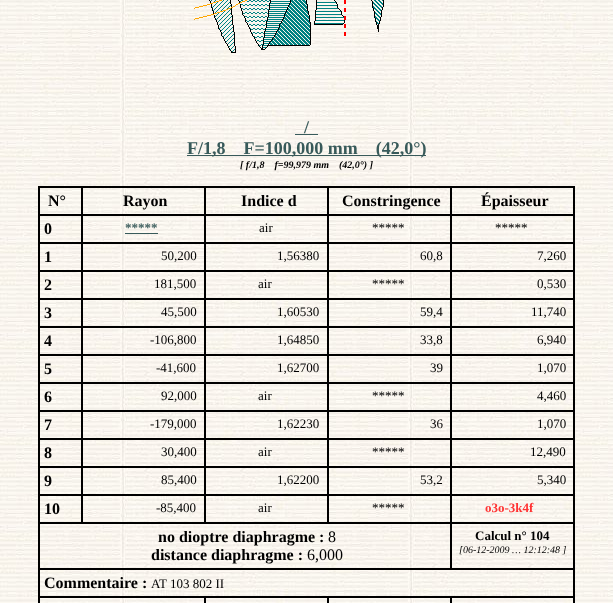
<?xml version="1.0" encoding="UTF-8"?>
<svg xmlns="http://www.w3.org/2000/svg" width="613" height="603">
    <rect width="100%" height="100%" fill="#FFFFFF"/>
    <image x="0" y="0" width="613" height="603" href="img_01.png"/>
    <image x="194" y="0" width="190" height="53" href="img_02.png"/>
    <text x="304" y="133" font-family="Liberation Serif" font-size="18" font-weight="700" fill="#385A5A">/</text>
    <rect x="295" y="134" width="23" height="1" fill="#385A5A"/>
    <rect x="187" y="155" width="239" height="1" fill="#385A5A"/>
    <text x="187" y="154" font-family="Liberation Serif" font-size="18" font-weight="700" fill="#385A5A" xml:space="preserve">F/1,8    F=100,000 mm    (42,0°)</text>
    <text x="240" y="168" font-family="Liberation Serif" font-size="10" font-weight="700" font-style="italic" fill="#000000" xml:space="preserve">[ f/1,8    f=99,979 mm    (42,0°) ]</text>
    <rect x="38.5" y="186.5" width="536" height="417" fill="none" stroke="#000000"/>
    <rect x="39.5" y="187.5" width="42" height="27" fill="none" stroke="#000000"/>
    <text x="48" y="206" font-family="Liberation Serif" font-size="16" font-weight="700" fill="#000000">N°</text>
    <rect x="82.5" y="187.5" width="122" height="27" fill="none" stroke="#000000"/>
    <text x="123" y="206" font-family="Liberation Serif" font-size="16" font-weight="700" fill="#000000">Rayon</text>
    <rect x="205.5" y="187.5" width="122" height="27" fill="none" stroke="#000000"/>
    <text x="241" y="206" font-family="Liberation Serif" font-size="16" font-weight="700" fill="#000000">Indice d</text>
    <rect x="328.5" y="187.5" width="122" height="27" fill="none" stroke="#000000"/>
    <text x="342" y="206" font-family="Liberation Serif" font-size="16" font-weight="700" fill="#000000">Constringence</text>
    <rect x="451.5" y="187.5" width="122" height="27" fill="none" stroke="#000000"/>
    <text x="481" y="206" font-family="Liberation Serif" font-size="16" font-weight="700" fill="#000000">Épaisseur</text>
    <rect x="39.5" y="215.5" width="42" height="27" fill="none" stroke="#000000"/>
    <text x="44" y="234" font-family="Liberation Serif" font-size="16" font-weight="700" fill="#000000">0</text>
    <rect x="82.5" y="215.5" width="122" height="27" fill="none" stroke="#000000"/>
    <text x="125" y="232" font-family="Liberation Serif" font-size="13" font-weight="700" fill="#385A5A">*****</text>
    <rect x="125" y="233" width="33" height="1" fill="#385A5A"/>
    <rect x="205.5" y="215.5" width="122" height="27" fill="none" stroke="#000000"/>
    <text x="259" y="232" font-family="Liberation Serif" font-size="13" fill="#000000">air</text>
    <rect x="328.5" y="215.5" width="122" height="27" fill="none" stroke="#000000"/>
    <text x="372" y="232" font-family="Liberation Serif" font-size="13" fill="#000000">*****</text>
    <rect x="451.5" y="215.5" width="122" height="27" fill="none" stroke="#000000"/>
    <text x="495" y="232" font-family="Liberation Serif" font-size="13" fill="#000000">*****</text>
    <rect x="39.5" y="243.5" width="42" height="27" fill="none" stroke="#000000"/>
    <text x="44" y="262" font-family="Liberation Serif" font-size="16" font-weight="700" fill="#000000">1</text>
    <rect x="82.5" y="243.5" width="122" height="27" fill="none" stroke="#000000"/>
    <text x="161" y="260" font-family="Liberation Serif" font-size="13" fill="#000000">50,200</text>
    <rect x="205.5" y="243.5" width="122" height="27" fill="none" stroke="#000000"/>
    <text x="277" y="260" font-family="Liberation Serif" font-size="13" fill="#000000">1,56380</text>
    <rect x="328.5" y="243.5" width="122" height="27" fill="none" stroke="#000000"/>
    <text x="420" y="260" font-family="Liberation Serif" font-size="13" fill="#000000">60,8</text>
    <rect x="451.5" y="243.5" width="122" height="27" fill="none" stroke="#000000"/>
    <text x="537" y="260" font-family="Liberation Serif" font-size="13" fill="#000000">7,260</text>
    <rect x="39.5" y="271.5" width="42" height="27" fill="none" stroke="#000000"/>
    <text x="44" y="290" font-family="Liberation Serif" font-size="16" font-weight="700" fill="#000000">2</text>
    <rect x="82.5" y="271.5" width="122" height="27" fill="none" stroke="#000000"/>
    <text x="154" y="288" font-family="Liberation Serif" font-size="13" fill="#000000">181,500</text>
    <rect x="205.5" y="271.5" width="122" height="27" fill="none" stroke="#000000"/>
    <text x="258" y="288" font-family="Liberation Serif" font-size="13" fill="#000000">air</text>
    <rect x="328.5" y="271.5" width="122" height="27" fill="none" stroke="#000000"/>
    <text x="372" y="288" font-family="Liberation Serif" font-size="13" fill="#000000">*****</text>
    <rect x="451.5" y="271.5" width="122" height="27" fill="none" stroke="#000000"/>
    <text x="537" y="288" font-family="Liberation Serif" font-size="13" fill="#000000">0,530</text>
    <rect x="39.5" y="299.5" width="42" height="27" fill="none" stroke="#000000"/>
    <text x="44" y="318" font-family="Liberation Serif" font-size="16" font-weight="700" fill="#000000">3</text>
    <rect x="82.5" y="299.5" width="122" height="27" fill="none" stroke="#000000"/>
    <text x="161" y="316" font-family="Liberation Serif" font-size="13" fill="#000000">45,500</text>
    <rect x="205.5" y="299.5" width="122" height="27" fill="none" stroke="#000000"/>
    <text x="277" y="316" font-family="Liberation Serif" font-size="13" fill="#000000">1,60530</text>
    <rect x="328.5" y="299.5" width="122" height="27" fill="none" stroke="#000000"/>
    <text x="420" y="316" font-family="Liberation Serif" font-size="13" fill="#000000">59,4</text>
    <rect x="451.5" y="299.5" width="122" height="27" fill="none" stroke="#000000"/>
    <text x="531" y="316" font-family="Liberation Serif" font-size="13" fill="#000000">11,740</text>
    <rect x="39.5" y="327.5" width="42" height="27" fill="none" stroke="#000000"/>
    <text x="44" y="346" font-family="Liberation Serif" font-size="16" font-weight="700" fill="#000000">4</text>
    <rect x="82.5" y="327.5" width="122" height="27" fill="none" stroke="#000000"/>
    <text x="150" y="344" font-family="Liberation Serif" font-size="13" fill="#000000">-106,800</text>
    <rect x="205.5" y="327.5" width="122" height="27" fill="none" stroke="#000000"/>
    <text x="277" y="344" font-family="Liberation Serif" font-size="13" fill="#000000">1,64850</text>
    <rect x="328.5" y="327.5" width="122" height="27" fill="none" stroke="#000000"/>
    <text x="420" y="344" font-family="Liberation Serif" font-size="13" fill="#000000">33,8</text>
    <rect x="451.5" y="327.5" width="122" height="27" fill="none" stroke="#000000"/>
    <text x="537" y="344" font-family="Liberation Serif" font-size="13" fill="#000000">6,940</text>
    <rect x="39.5" y="355.5" width="42" height="27" fill="none" stroke="#000000"/>
    <text x="44" y="374" font-family="Liberation Serif" font-size="16" font-weight="700" fill="#000000">5</text>
    <rect x="82.5" y="355.5" width="122" height="27" fill="none" stroke="#000000"/>
    <text x="156" y="372" font-family="Liberation Serif" font-size="13" fill="#000000">-41,600</text>
    <rect x="205.5" y="355.5" width="122" height="27" fill="none" stroke="#000000"/>
    <text x="277" y="372" font-family="Liberation Serif" font-size="13" fill="#000000">1,62700</text>
    <rect x="328.5" y="355.5" width="122" height="27" fill="none" stroke="#000000"/>
    <text x="430" y="372" font-family="Liberation Serif" font-size="13" fill="#000000">39</text>
    <rect x="451.5" y="355.5" width="122" height="27" fill="none" stroke="#000000"/>
    <text x="537" y="372" font-family="Liberation Serif" font-size="13" fill="#000000">1,070</text>
    <rect x="39.5" y="383.5" width="42" height="27" fill="none" stroke="#000000"/>
    <text x="44" y="402" font-family="Liberation Serif" font-size="16" font-weight="700" fill="#000000">6</text>
    <rect x="82.5" y="383.5" width="122" height="27" fill="none" stroke="#000000"/>
    <text x="161" y="400" font-family="Liberation Serif" font-size="13" fill="#000000">92,000</text>
    <rect x="205.5" y="383.5" width="122" height="27" fill="none" stroke="#000000"/>
    <text x="258" y="400" font-family="Liberation Serif" font-size="13" fill="#000000">air</text>
    <rect x="328.5" y="383.5" width="122" height="27" fill="none" stroke="#000000"/>
    <text x="372" y="400" font-family="Liberation Serif" font-size="13" fill="#000000">*****</text>
    <rect x="451.5" y="383.5" width="122" height="27" fill="none" stroke="#000000"/>
    <text x="537" y="400" font-family="Liberation Serif" font-size="13" fill="#000000">4,460</text>
    <rect x="39.5" y="411.5" width="42" height="27" fill="none" stroke="#000000"/>
    <text x="44" y="430" font-family="Liberation Serif" font-size="16" font-weight="700" fill="#000000">7</text>
    <rect x="82.5" y="411.5" width="122" height="27" fill="none" stroke="#000000"/>
    <text x="150" y="428" font-family="Liberation Serif" font-size="13" fill="#000000">-179,000</text>
    <rect x="205.5" y="411.5" width="122" height="27" fill="none" stroke="#000000"/>
    <text x="277" y="428" font-family="Liberation Serif" font-size="13" fill="#000000">1,62230</text>
    <rect x="328.5" y="411.5" width="122" height="27" fill="none" stroke="#000000"/>
    <text x="430" y="428" font-family="Liberation Serif" font-size="13" fill="#000000">36</text>
    <rect x="451.5" y="411.5" width="122" height="27" fill="none" stroke="#000000"/>
    <text x="537" y="428" font-family="Liberation Serif" font-size="13" fill="#000000">1,070</text>
    <rect x="39.5" y="439.5" width="42" height="27" fill="none" stroke="#000000"/>
    <text x="44" y="458" font-family="Liberation Serif" font-size="16" font-weight="700" fill="#000000">8</text>
    <rect x="82.5" y="439.5" width="122" height="27" fill="none" stroke="#000000"/>
    <text x="161" y="456" font-family="Liberation Serif" font-size="13" fill="#000000">30,400</text>
    <rect x="205.5" y="439.5" width="122" height="27" fill="none" stroke="#000000"/>
    <text x="258" y="456" font-family="Liberation Serif" font-size="13" fill="#000000">air</text>
    <rect x="328.5" y="439.5" width="122" height="27" fill="none" stroke="#000000"/>
    <text x="372" y="456" font-family="Liberation Serif" font-size="13" fill="#000000">*****</text>
    <rect x="451.5" y="439.5" width="122" height="27" fill="none" stroke="#000000"/>
    <text x="530" y="456" font-family="Liberation Serif" font-size="13" fill="#000000">12,490</text>
    <rect x="39.5" y="467.5" width="42" height="27" fill="none" stroke="#000000"/>
    <text x="44" y="486" font-family="Liberation Serif" font-size="16" font-weight="700" fill="#000000">9</text>
    <rect x="82.5" y="467.5" width="122" height="27" fill="none" stroke="#000000"/>
    <text x="161" y="484" font-family="Liberation Serif" font-size="13" fill="#000000">85,400</text>
    <rect x="205.5" y="467.5" width="122" height="27" fill="none" stroke="#000000"/>
    <text x="277" y="484" font-family="Liberation Serif" font-size="13" fill="#000000">1,62200</text>
    <rect x="328.5" y="467.5" width="122" height="27" fill="none" stroke="#000000"/>
    <text x="420" y="484" font-family="Liberation Serif" font-size="13" fill="#000000">53,2</text>
    <rect x="451.5" y="467.5" width="122" height="27" fill="none" stroke="#000000"/>
    <text x="537" y="484" font-family="Liberation Serif" font-size="13" fill="#000000">5,340</text>
    <rect x="39.5" y="495.5" width="42" height="27" fill="none" stroke="#000000"/>
    <text x="44" y="514" font-family="Liberation Serif" font-size="16" font-weight="700" fill="#000000">10</text>
    <rect x="82.5" y="495.5" width="122" height="27" fill="none" stroke="#000000"/>
    <text x="156" y="512" font-family="Liberation Serif" font-size="13" fill="#000000">-85,400</text>
    <rect x="205.5" y="495.5" width="122" height="27" fill="none" stroke="#000000"/>
    <text x="258" y="512" font-family="Liberation Serif" font-size="13" fill="#000000">air</text>
    <rect x="328.5" y="495.5" width="122" height="27" fill="none" stroke="#000000"/>
    <text x="372" y="512" font-family="Liberation Serif" font-size="13" fill="#000000">*****</text>
    <rect x="451.5" y="495.5" width="122" height="27" fill="none" stroke="#000000"/>
    <text x="485" y="512" font-family="Liberation Serif" font-size="13" font-weight="700" fill="#FF3333">o3o-3k4f</text>
    <rect x="39.5" y="523.5" width="411" height="45" fill="none" stroke="#000000"/>
    <text x="158" y="542" font-family="Liberation Serif" font-size="16" font-weight="700" fill="#000000">no dioptre diaphragme :</text>
    <text x="328" y="542" font-family="Liberation Serif" font-size="16" fill="#000000">8</text>
    <text x="151" y="560" font-family="Liberation Serif" font-size="16" font-weight="700" fill="#000000">distance diaphragme :</text>
    <text x="307" y="560" font-family="Liberation Serif" font-size="16" fill="#000000">6,000</text>
    <rect x="451.5" y="523.5" width="122" height="45" fill="none" stroke="#000000"/>
    <text x="475" y="540" font-family="Liberation Serif" font-size="13" font-weight="700" fill="#000000">Calcul n° 104</text>
    <text x="459" y="553" font-family="Liberation Serif" font-size="10" font-style="italic" fill="#000000">[06-12-2009 … 12:12:48 ]</text>
    <rect x="39.5" y="569.5" width="534" height="27" fill="none" stroke="#000000"/>
    <text x="44" y="588" font-family="Liberation Serif" font-size="16" font-weight="700" fill="#000000">Commentaire :</text>
    <text x="151" y="588" font-family="Liberation Serif" font-size="13" fill="#000000">AT 103 802 II</text>
    <rect x="39.5" y="597.5" width="165" height="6" fill="none" stroke="#000000"/>
    <rect x="205.5" y="597.5" width="122" height="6" fill="none" stroke="#000000"/>
    <rect x="328.5" y="597.5" width="122" height="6" fill="none" stroke="#000000"/>
    <rect x="451.5" y="597.5" width="122" height="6" fill="none" stroke="#000000"/>
</svg>
